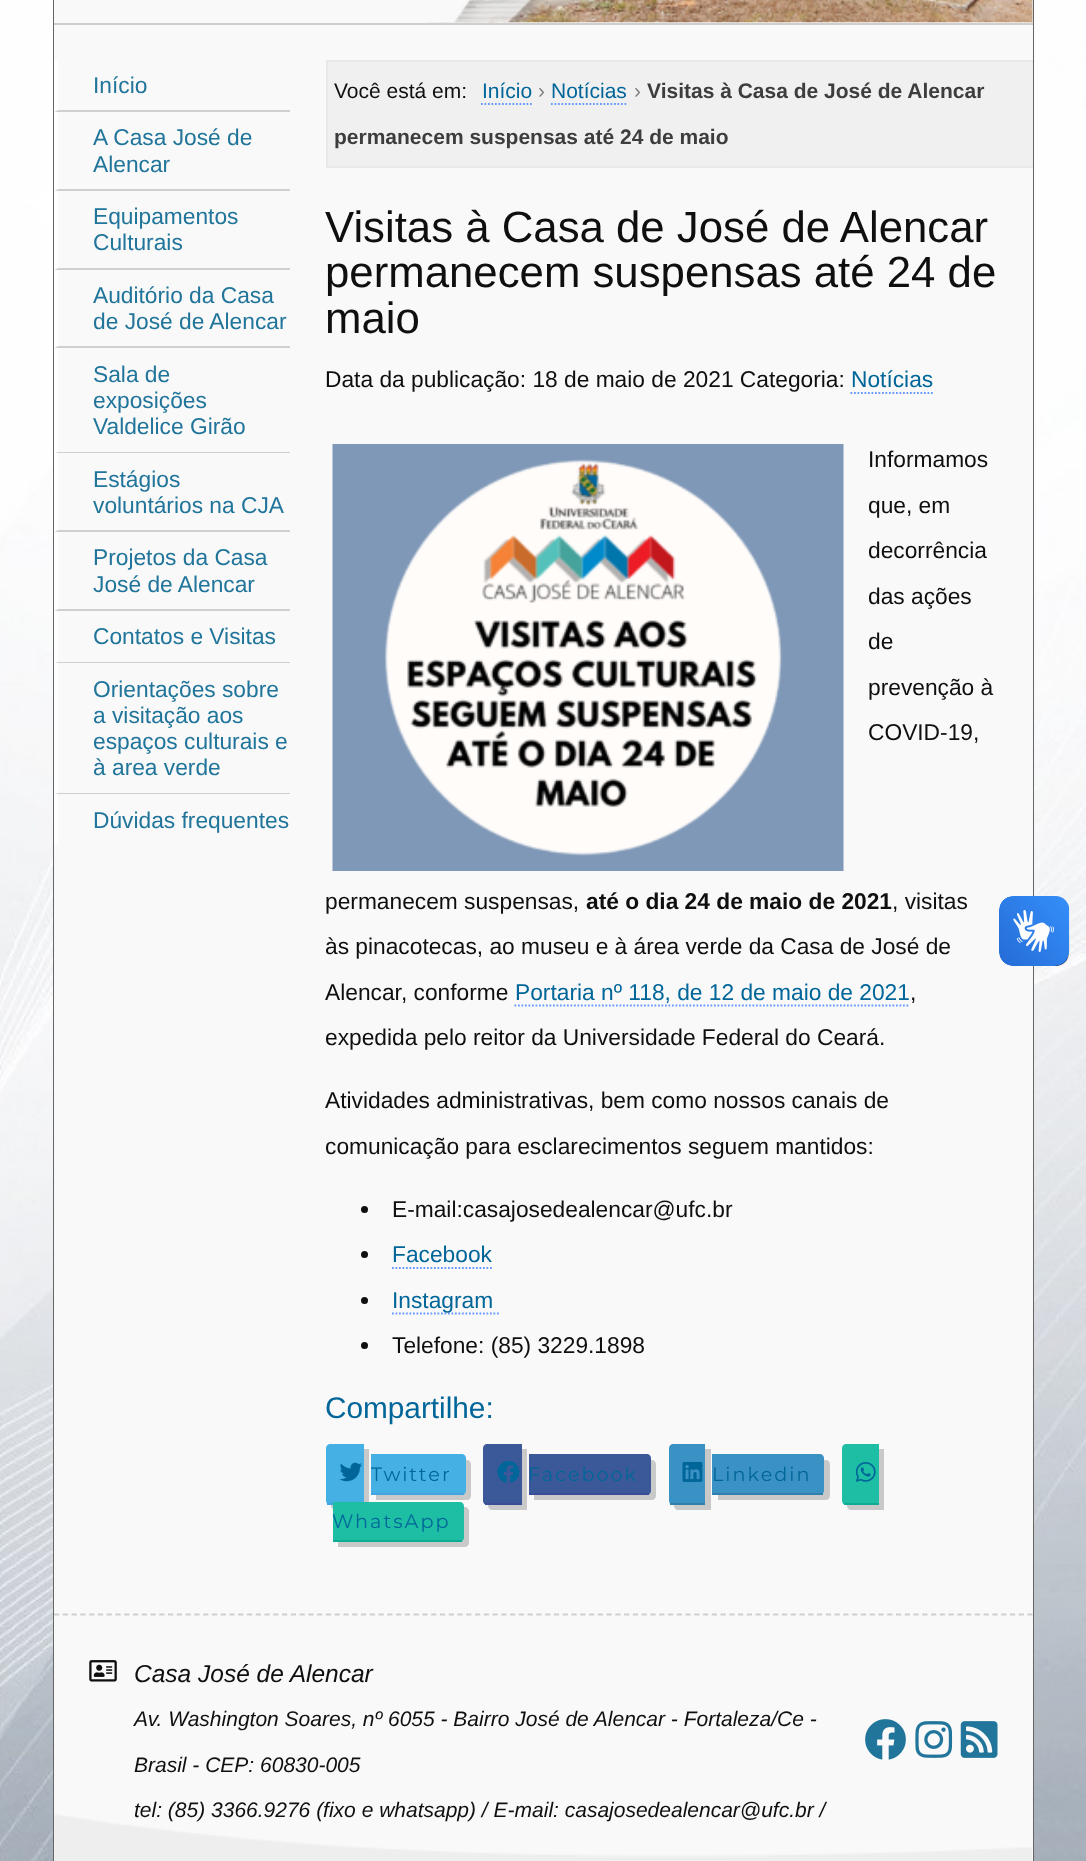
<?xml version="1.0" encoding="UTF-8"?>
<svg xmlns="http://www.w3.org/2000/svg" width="1086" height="1861">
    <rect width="100%" height="100%" fill="#FFFFFF"/>
    <image x="0" y="0" width="1086" height="1861" href="img_01.png"/>
    <rect x="54" y="-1" width="979" height="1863" fill="none" stroke="#656565" stroke-width="2"/>
    <rect x="54" y="0" width="979" height="1861" fill="#F9F9F9"/>
    <rect x="54" y="23" width="979" height="2" fill="#CFCFCF"/>
    <image x="427" y="0" width="606" height="23" href="img_02.png"/>
    <image x="427" y="0" width="122" height="23" href="img_03.png"/>
    <path d="M 290 112 H 54 L 58 110 H 290 Z" fill="#CFCFCF"/>
    <path d="M 54 112 V 60 H 58 V 110 Z" fill="#FFFFFF"/>
    <text x="93" y="93" font-family="Liberation Sans" font-size="22.75" fill="#21759B">Início</text>
    <path d="M 290 191 H 54 L 58 189 H 290 Z" fill="#CFCFCF"/>
    <path d="M 54 191 V 112 H 58 V 189 Z" fill="#FFFFFF"/>
    <text font-family="Liberation Sans" font-size="22.75" fill="#21759B">
        <tspan x="93" y="145">A Casa José de</tspan>
        <tspan x="93" y="172">Alencar</tspan>
    </text>
    <path d="M 290 270 H 54 L 58 268 H 290 Z" fill="#CFCFCF"/>
    <path d="M 54 270 V 191 H 58 V 268 Z" fill="#FFFFFF"/>
    <text font-family="Liberation Sans" font-size="22.75" fill="#21759B">
        <tspan x="93" y="224">Equipamentos</tspan>
        <tspan x="93" y="250">Culturais</tspan>
    </text>
    <path d="M 290 348 H 54 L 58 346 H 290 Z" fill="#CFCFCF"/>
    <path d="M 54 348 V 270 H 58 V 346 Z" fill="#FFFFFF"/>
    <text font-family="Liberation Sans" font-size="22.75" fill="#21759B">
        <tspan x="93" y="303">Auditório da Casa</tspan>
        <tspan x="93" y="329">de José de Alencar</tspan>
    </text>
    <path d="M 290 453 H 54 L 58 452 H 290 Z" fill="#CFCFCF"/>
    <path d="M 54 453 V 348 H 58 V 452 Z" fill="#FFFFFF"/>
    <text font-family="Liberation Sans" font-size="22.75" fill="#21759B">
        <tspan x="93" y="382">Sala de</tspan>
        <tspan x="93" y="408">exposições</tspan>
        <tspan x="93" y="434">Valdelice Girão</tspan>
    </text>
    <path d="M 290 532 H 54 L 58 530 H 290 Z" fill="#CFCFCF"/>
    <path d="M 54 532 V 453 H 58 V 530 Z" fill="#FFFFFF"/>
    <text font-family="Liberation Sans" font-size="22.75" fill="#21759B">
        <tspan x="93" y="487">Estágios</tspan>
        <tspan x="93" y="513">voluntários na CJA</tspan>
    </text>
    <path d="M 290 611 H 54 L 58 609 H 290 Z" fill="#CFCFCF"/>
    <path d="M 54 611 V 532 H 58 V 609 Z" fill="#FFFFFF"/>
    <text font-family="Liberation Sans" font-size="22.75" fill="#21759B">
        <tspan x="93" y="565">Projetos da Casa</tspan>
        <tspan x="93" y="592">José de Alencar</tspan>
    </text>
    <path d="M 290 663 H 54 L 58 662 H 290 Z" fill="#CFCFCF"/>
    <path d="M 54 663 V 611 H 58 V 662 Z" fill="#FFFFFF"/>
    <text x="93" y="644" font-family="Liberation Sans" font-size="22.75" fill="#21759B">Contatos e Visitas</text>
    <path d="M 290 794 H 54 L 58 793 H 290 Z" fill="#CFCFCF"/>
    <path d="M 54 794 V 663 H 58 V 793 Z" fill="#FFFFFF"/>
    <text font-family="Liberation Sans" font-size="22.75" fill="#21759B">
        <tspan x="93" y="697">Orientações sobre</tspan>
        <tspan x="93" y="723">a visitação aos</tspan>
        <tspan x="93" y="749">espaços culturais e</tspan>
        <tspan x="93" y="775">à area verde</tspan>
    </text>
    <rect x="54" y="795" width="4" height="50" fill="#FFFFFF"/>
    <text x="93" y="828" font-family="Liberation Sans" font-size="22.75" fill="#21759B">Dúvidas frequentes</text>
    <rect x="328" y="62" width="705" height="104" fill="#F0F0F0"/>
    <rect x="326" y="60" width="707" height="2" fill="#E8E8E8"/>
    <rect x="326" y="166" width="707" height="2" fill="#E8E8E8"/>
    <rect x="326" y="60" width="2" height="108" fill="#E8E8E8"/>
    <text x="334" y="98" font-family="Liberation Sans" font-size="21" fill="#0F0F0F">Você está em:</text>
    <text x="482" y="98" font-family="Liberation Sans" font-size="21" fill="#006699">Início</text>
    <path d="M 481 104 H 532" fill="none" stroke="#6699FF" stroke-width="1.8" stroke-dasharray="1.75 1.75"/>
    <text x="538" y="98" font-family="Liberation Sans" font-size="21" fill="#808080">›</text>
    <text x="551" y="98" font-family="Liberation Sans" font-size="21" fill="#006699">Notícias</text>
    <path d="M 551 104 H 626.5" fill="none" stroke="#6699FF" stroke-width="1.8" stroke-dasharray="1.75 1.75"/>
    <text x="634" y="98" font-family="Liberation Sans" font-size="21" fill="#808080">›</text>
    <text x="647" y="98" font-family="Liberation Sans" font-size="21" font-weight="700" fill="#3D3D3D">Visitas à Casa de José de Alencar</text>
    <text x="334" y="144" font-family="Liberation Sans" font-size="21" font-weight="700" fill="#3D3D3D">permanecem suspensas até 24 de maio</text>
    <text font-family="Liberation Sans" font-size="43.75" fill="#0F0F0F">
        <tspan x="325" y="242">Visitas à Casa de José de Alencar</tspan>
        <tspan x="325" y="287">permanecem suspensas até 24 de</tspan>
        <tspan x="325" y="333">maio</tspan>
    </text>
    <text x="325" y="387" font-family="Liberation Sans" font-size="22.75" fill="#0F0F0F">Data da publicação: 18 de maio de 2021 Categoria:</text>
    <text x="851" y="387" font-family="Liberation Sans" font-size="22.75" fill="#006699">Notícias</text>
    <path d="M 850.5 393 H 933" fill="none" stroke="#6699FF" stroke-width="1.8" stroke-dasharray="1.75 1.75"/>
    <image x="332" y="444" width="512" height="427" href="img_04.png"/>
    <text x="868" y="467" font-family="Liberation Sans" font-size="22.75" fill="#0F0F0F">Informamos</text>
    <text font-family="Liberation Sans" font-size="22.75" fill="#0F0F0F">
        <tspan x="868" y="513">que, em</tspan>
        <tspan x="868" y="558">decorrência</tspan>
    </text>
    <text font-family="Liberation Sans" font-size="22.75" fill="#0F0F0F">
        <tspan x="868" y="604">das ações</tspan>
        <tspan x="868" y="649">de</tspan>
    </text>
    <text font-family="Liberation Sans" font-size="22.75" fill="#0F0F0F">
        <tspan x="868" y="695">prevenção à</tspan>
        <tspan x="868" y="740">COVID-19,</tspan>
    </text>
    <text x="325" y="909" font-family="Liberation Sans" font-size="22.75" fill="#0F0F0F">permanecem suspensas,</text>
    <text x="586" y="909" font-family="Liberation Sans" font-size="22.75" font-weight="700" fill="#0F0F0F">até o dia 24 de maio de 2021</text>
    <text x="892" y="909" font-family="Liberation Sans" font-size="22.75" fill="#0F0F0F">, visitas</text>
    <text x="325" y="954" font-family="Liberation Sans" font-size="22.75" fill="#0F0F0F">às pinacotecas, ao museu e à área verde da Casa de José de</text>
    <text x="325" y="1000" font-family="Liberation Sans" font-size="22.75" fill="#0F0F0F">Alencar, conforme</text>
    <text x="515" y="1000" font-family="Liberation Sans" font-size="22.75" fill="#006699">Portaria nº 118, de 12 de maio de 2021</text>
    <path d="M 514.5 1005.5 H 910" fill="none" stroke="#6699FF" stroke-width="1.8" stroke-dasharray="1.75 1.75"/>
    <text x="910" y="1000" font-family="Liberation Sans" font-size="22.75" fill="#0F0F0F">,</text>
    <text x="325" y="1045" font-family="Liberation Sans" font-size="22.75" fill="#0F0F0F">expedida pelo reitor da Universidade Federal do Ceará.</text>
    <text x="325" y="1108" font-family="Liberation Sans" font-size="22.75" fill="#0F0F0F">Atividades administrativas, bem como nossos canais de</text>
    <text x="325" y="1154" font-family="Liberation Sans" font-size="22.75" fill="#0F0F0F">comunicação para esclarecimentos seguem mantidos:</text>
    <circle cx="364.5" cy="1209.5" r="3.5" fill="#0F0F0F"/>
    <text x="392" y="1217" font-family="Liberation Sans" font-size="22.75" fill="#0F0F0F">E-mail:casajosedealencar@ufc.br</text>
    <circle cx="364.5" cy="1254.5" r="3.5" fill="#0F0F0F"/>
    <text x="392" y="1262" font-family="Liberation Sans" font-size="22.75" fill="#006699">Facebook</text>
    <path d="M 392 1268 H 492" fill="none" stroke="#6699FF" stroke-width="1.8" stroke-dasharray="1.75 1.75"/>
    <circle cx="364.5" cy="1300.5" r="3.5" fill="#0F0F0F"/>
    <path d="M 392 1313.5 H 499" fill="none" stroke="#6699FF" stroke-width="1.8" stroke-dasharray="1.75 1.75"/>
    <text x="392" y="1308" font-family="Liberation Sans" font-size="22.75" fill="#006699">Instagram</text>
    <circle cx="364.5" cy="1345.5" r="3.5" fill="#0F0F0F"/>
    <text x="392" y="1353" font-family="Liberation Sans" font-size="22.75" fill="#0F0F0F">Telefone: (85) 3229.1898</text>
    <text x="325" y="1418" font-family="Liberation Sans" font-size="29.75" fill="#006699">Compartilhe:</text>
    <path d="M 331 1505 V 1506 C 331 1508 333 1510 335 1510 H 369 V 1449 H 364 V 1505 Z" fill="#C9C9C9"/>
    <path d="M 330 1444 H 364 V 1505 H 330 C 328 1505 326 1503 326 1501 V 1448 C 326 1446 328 1444 330 1444 Z" fill="#45B0E3"/>
    <rect x="327" y="1503" width="6" height="2" fill="#45A3E3"/>
    <path d="M 376 1494 V 1500 H 467 C 469 1500 471 1498 471 1496 V 1464 C 471 1462 469 1460 467 1460 H 466 V 1491 C 466 1493 464 1494 462 1494 Z" fill="#C9C9C9"/>
    <path d="M 371 1454 H 462 C 464 1454 466 1456 466 1458 V 1491 C 466 1493 464 1495 462 1495 H 371 Z" fill="#45B0E3"/>
    <rect x="371" y="1493" width="93" height="2" fill="#45A3E3"/>
    <image x="339" y="1462" width="23" height="20" href="img_05.png"/>
    <text x="371" y="1481" font-family="Montserrat" font-size="19.25" letter-spacing="2" fill="#006699">Twitter</text>
    <path d="M 488 1505 V 1506 C 488 1508 490 1510 492 1510 H 527 V 1449 H 522 V 1505 Z" fill="#C9C9C9"/>
    <path d="M 487 1444 H 522 V 1505 H 487 C 485 1505 483 1503 483 1501 V 1448 C 483 1446 485 1444 487 1444 Z" fill="#3B5998"/>
    <rect x="485" y="1503" width="37" height="2" fill="#3B4C98"/>
    <path d="M 534 1494 V 1500 H 652 C 654 1500 656 1498 656 1496 V 1464 C 656 1462 654 1460 652 1460 H 651 V 1491 C 651 1493 649 1494 648 1494 Z" fill="#C9C9C9"/>
    <path d="M 529 1454 H 647 C 649 1454 651 1456 651 1458 V 1491 C 651 1493 649 1495 647 1495 H 529 Z" fill="#3B5998"/>
    <rect x="529" y="1493" width="120" height="2" fill="#3B4C98"/>
    <image x="497" y="1461" width="23" height="22" href="img_06.png"/>
    <text x="528" y="1481" font-family="Montserrat" font-size="19.25" letter-spacing="2" fill="#006699">Facebook</text>
    <path d="M 674 1505 V 1506 C 674 1508 676 1510 678 1510 H 711 V 1449 H 705 V 1505 Z" fill="#C9C9C9"/>
    <path d="M 673 1444 H 705 V 1505 H 673 C 671 1505 669 1503 669 1501 V 1448 C 669 1446 671 1444 673 1444 Z" fill="#3A91C3"/>
    <rect x="670" y="1503" width="35" height="2" fill="#327FAC"/>
    <path d="M 718 1494 V 1500 H 826 C 828 1500 830 1498 830 1496 V 1464 C 830 1462 828 1460 826 1460 H 824 V 1491 C 824 1493 823 1494 821 1494 Z" fill="#C9C9C9"/>
    <path d="M 712 1454 H 820 C 822 1454 824 1456 824 1458 V 1491 C 824 1493 822 1495 820 1495 H 712 Z" fill="#3A91C3"/>
    <rect x="712" y="1493" width="111" height="2" fill="#327FAC"/>
    <image x="682" y="1462" width="21" height="20" href="img_07.png"/>
    <text x="712" y="1481" font-family="Montserrat" font-size="19.25" letter-spacing="2" fill="#006699">Linkedin</text>
    <path d="M 847 1505 V 1506 C 847 1508 849 1510 851 1510 H 884 V 1449 H 878 V 1505 Z" fill="#C9C9C9"/>
    <path d="M 846 1444 H 879 V 1505 H 846 C 844 1505 842 1503 842 1501 V 1448 C 842 1446 844 1444 846 1444 Z" fill="#1EBEA5"/>
    <rect x="844" y="1503" width="35" height="2" fill="#0FAB92"/>
    <path d="M 338 1542 V 1547 H 465 C 467 1547 469 1545 469 1543 V 1511 C 469 1509 467 1507 465 1507 H 464 V 1538 C 464 1540 462 1542 460 1542 Z" fill="#C9C9C9"/>
    <path d="M 333 1502 H 460 C 462 1502 464 1504 464 1506 V 1538 C 464 1540 462 1542 460 1542 H 333 Z" fill="#1EBEA5"/>
    <rect x="333" y="1540" width="129" height="2" fill="#0FAB92"/>
    <image x="855" y="1462" width="21" height="20" href="img_08.png"/>
    <text x="332" y="1528" font-family="Montserrat" font-size="19.25" letter-spacing="2" fill="#006699">WhatsApp</text>
    <image x="54" y="1814" width="978" height="47" href="img_09.png"/>
    <path d="M 54 1614.5 H 1032.5" fill="none" stroke="#CFCFCF" stroke-width="1.8" stroke-dasharray="5.25 3.52"/>
    <image x="89" y="1660" width="28" height="22" href="img_10.png"/>
    <text x="134" y="1682" font-family="Liberation Sans" font-size="24.5" font-style="italic" fill="#0F0F0F">Casa José de Alencar</text>
    <text x="134" y="1726" font-family="Liberation Sans" font-size="21" font-style="italic" fill="#0F0F0F">Av. Washington Soares, nº 6055 - Bairro José de Alencar - Fortaleza/Ce -</text>
    <text x="134" y="1772" font-family="Liberation Sans" font-size="21" font-style="italic" fill="#0F0F0F">Brasil - CEP: 60830-005</text>
    <text x="134" y="1817" font-family="Liberation Sans" font-size="21" font-style="italic" fill="#0F0F0F">tel: (85) 3366.9276 (fixo e whatsapp) / E-mail: casajosedealencar@ufc.br /</text>
    <image x="865" y="1719" width="41" height="41" href="img_11.png"/>
    <image x="915" y="1721" width="38" height="37" href="img_12.png"/>
    <image x="960" y="1721" width="38" height="37" href="img_13.png"/>
    <image x="999" y="896" width="71" height="70" href="img_14.png"/>
    <image x="999" y="896" width="70" height="70" href="img_15.png"/>
</svg>
